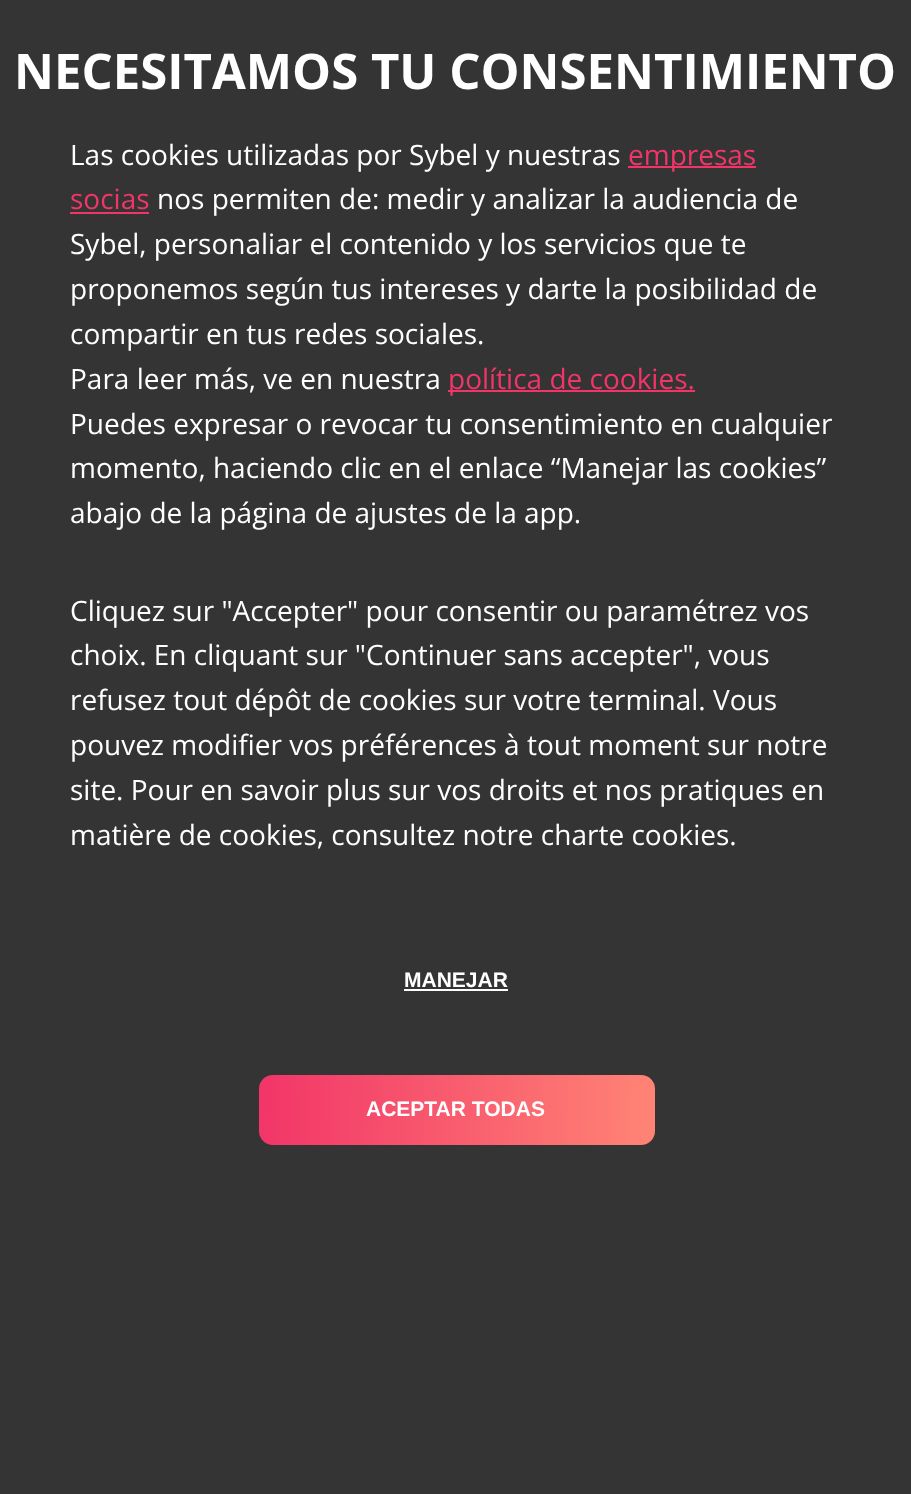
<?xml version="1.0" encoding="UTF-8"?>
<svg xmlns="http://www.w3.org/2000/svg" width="911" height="1494">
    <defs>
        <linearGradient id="g1" gradientUnits="userSpaceOnUse" x1="258" y1="1106" x2="655" y2="1113"><stop offset="0" stop-color="#F23568"/><stop offset="1" stop-color="#FF8475"/></linearGradient>
    </defs>
    <rect width="100%" height="100%" fill="#343434"/>
    <text x="14" y="89" font-family="Open Sans" font-size="49.1" font-weight="700" fill="#FFFFFF">NECESITAMOS TU CONSENTIMIENTO</text>
    <text x="70" y="165" font-family="Open Sans" font-size="28" fill="#FFFFFF">Las cookies utilizadas por Sybel y nuestras</text>
    <rect x="628" y="166" width="128" height="2" fill="#F23568"/>
    <text x="628" y="165" font-family="Open Sans" font-size="28" fill="#F23568">empresas</text>
    <text x="70" y="209" font-family="Open Sans" font-size="28" fill="#F23568">socias</text>
    <rect x="70" y="212" width="79" height="2" fill="#F23568"/>
    <text x="157" y="209" font-family="Open Sans" font-size="28" fill="#FFFFFF">nos permiten de: medir y analizar la audiencia de</text>
    <text font-family="Open Sans" font-size="28" fill="#FFFFFF">
        <tspan x="70" y="254">Sybel, personaliar el contenido y los servicios que te</tspan>
        <tspan x="70" y="299">proponemos según tus intereses y darte la posibilidad de</tspan>
        <tspan x="70" y="344">compartir en tus redes sociales.</tspan>
        <tspan x="70" y="389">Para leer más, ve en nuestra</tspan>
    </text>
    <rect x="448" y="390" width="247" height="2" fill="#F23568"/>
    <text x="448" y="389" font-family="Open Sans" font-size="28" fill="#F23568">política de cookies.</text>
    <text font-family="Open Sans" font-size="28" fill="#FFFFFF">
        <tspan x="70" y="434">Puedes expresar o revocar tu consentimiento en cualquier</tspan>
        <tspan x="70" y="478">momento, haciendo clic en el enlace “Manejar las cookies”</tspan>
        <tspan x="70" y="523">abajo de la página de ajustes de la app.</tspan>
    </text>
    <text font-family="Open Sans" font-size="28" fill="#FFFFFF">
        <tspan x="70" y="621">Cliquez sur "Accepter" pour consentir ou paramétrez vos</tspan>
        <tspan x="70" y="665">choix. En cliquant sur "Continuer sans accepter", vous</tspan>
        <tspan x="70" y="710">refusez tout dépôt de cookies sur votre terminal. Vous</tspan>
        <tspan x="70" y="755">pouvez modifier vos préférences à tout moment sur notre</tspan>
        <tspan x="70" y="800">site. Pour en savoir plus sur vos droits et nos pratiques en</tspan>
        <tspan x="70" y="845">matière de cookies, consultez notre charte cookies.</tspan>
    </text>
    <text x="404" y="987" font-family="Liberation Sans" font-size="21" font-weight="700" fill="#FFFFFF">MANEJAR</text>
    <rect x="404" y="989" width="104" height="2" fill="#FFFFFF"/>
    <rect x="259" y="1075" width="396" height="70" rx="14" fill="url(#g1)"/>
    <text x="366" y="1116" font-family="Liberation Sans" font-size="21" font-weight="700" fill="#FFFFFF">ACEPTAR TODAS</text>
</svg>
